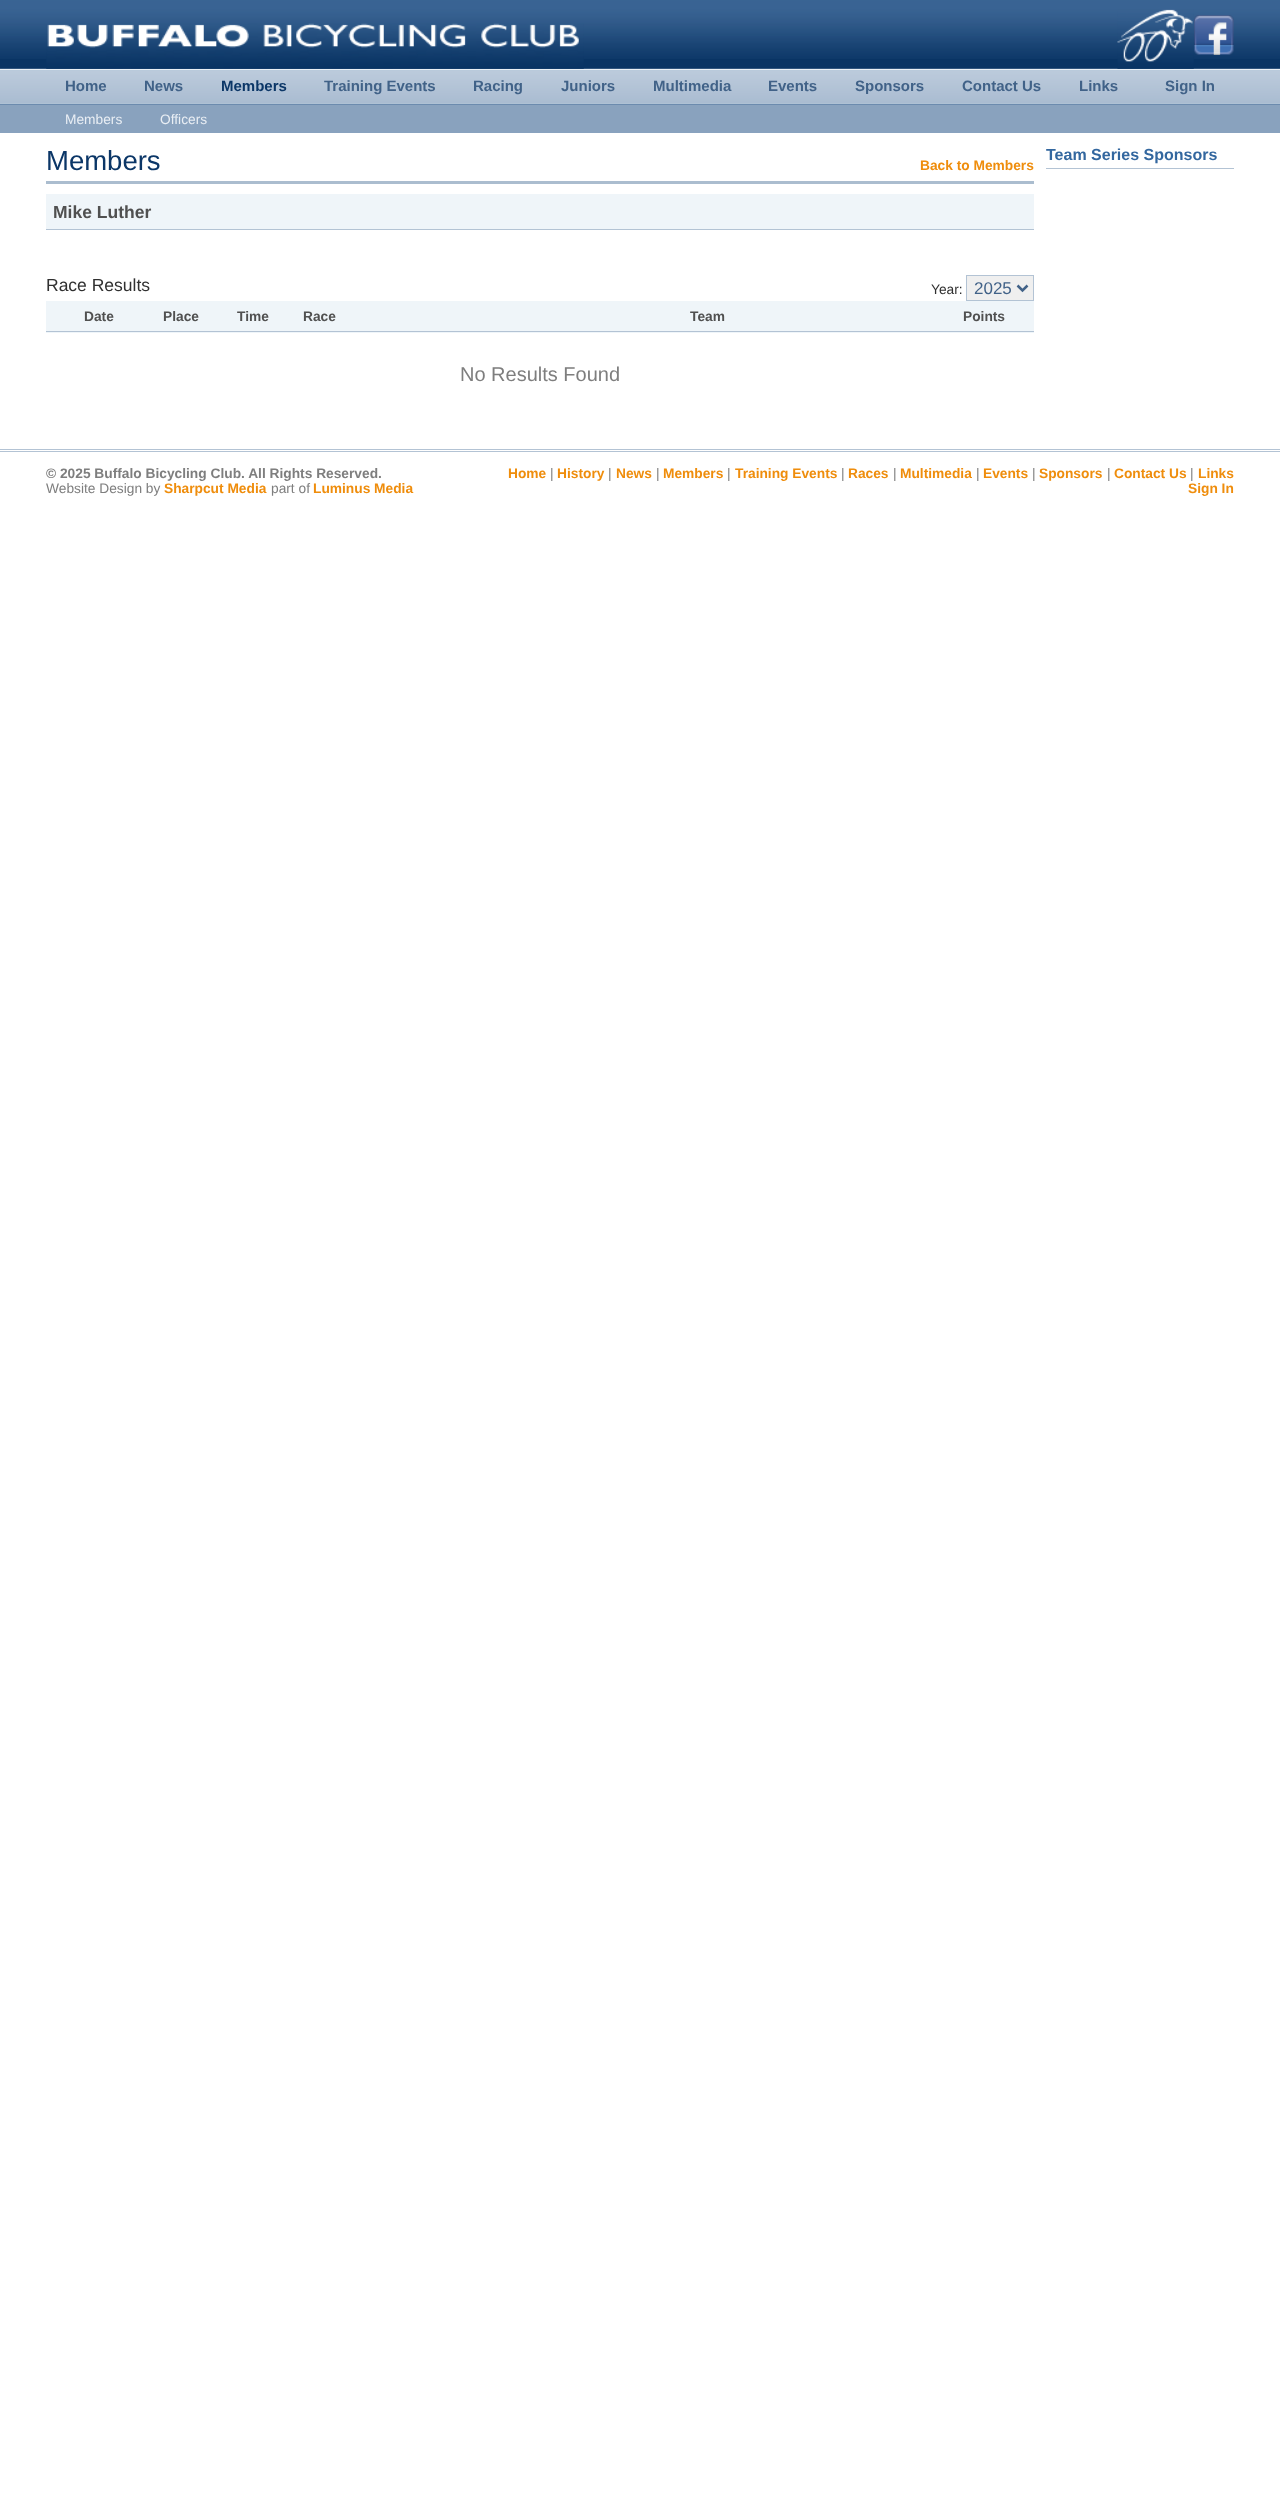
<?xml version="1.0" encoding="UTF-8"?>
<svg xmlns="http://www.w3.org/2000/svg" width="1280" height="2520">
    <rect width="100%" height="100%" fill="#FFFFFF"/>
    <rect x="0" y="59" width="1280" height="10" fill="#093464"/>
    <image x="0" y="0" width="1280" height="59" href="img_01.png"/>
    <image x="0" y="68" width="1280" height="36" href="img_05.png"/>
    <image x="46" y="23" width="538" height="46" href="img_02.png"/>
    <image x="1193" y="15" width="41" height="40" href="img_04.png"/>
    <image x="1117" y="9" width="77" height="60" href="img_03.png"/>
    <rect x="0" y="69" width="1280" height="1" fill="#E9EFF5"/>
    <rect x="0" y="104" width="1280" height="1" fill="#6C8BAE"/>
    <text x="65" y="91" font-family="Liberation Sans" font-size="15" font-weight="700" fill="#416288">Home</text>
    <text x="144" y="91" font-family="Liberation Sans" font-size="15" font-weight="700" fill="#416288">News</text>
    <text x="221" y="91" font-family="Liberation Sans" font-size="15" font-weight="700" fill="#0B3667">Members</text>
    <text x="324" y="91" font-family="Liberation Sans" font-size="15" font-weight="700" fill="#416288">Training Events</text>
    <text x="473" y="91" font-family="Liberation Sans" font-size="15" font-weight="700" fill="#416288">Racing</text>
    <text x="561" y="91" font-family="Liberation Sans" font-size="15" font-weight="700" fill="#416288">Juniors</text>
    <text x="653" y="91" font-family="Liberation Sans" font-size="15" font-weight="700" fill="#416288">Multimedia</text>
    <text x="768" y="91" font-family="Liberation Sans" font-size="15" font-weight="700" fill="#416288">Events</text>
    <text x="855" y="91" font-family="Liberation Sans" font-size="15" font-weight="700" fill="#416288">Sponsors</text>
    <text x="962" y="91" font-family="Liberation Sans" font-size="15" font-weight="700" fill="#416288">Contact Us</text>
    <text x="1079" y="91" font-family="Liberation Sans" font-size="15" font-weight="700" fill="#416288">Links</text>
    <text x="1165" y="91" font-family="Liberation Sans" font-size="15" font-weight="700" fill="#416288">Sign In</text>
    <rect x="0" y="105" width="1280" height="28" fill="#89A2BE"/>
    <text x="65" y="124" font-family="Liberation Sans" font-size="13.75" fill="#E9EEF4">Members</text>
    <text x="160" y="124" font-family="Liberation Sans" font-size="13.75" fill="#E9EEF4">Officers</text>
    <rect x="46" y="181" width="988" height="3" fill="#ABBDCF"/>
    <text x="46" y="170" font-family="Liberation Sans" font-size="27.5" fill="#0B3667">Members</text>
    <text x="920" y="170" font-family="Liberation Sans" font-size="13.75" font-weight="700" fill="#EF8D0C">Back to Members</text>
    <rect x="46" y="194" width="988" height="35" fill="#EFF5F9"/>
    <rect x="46" y="229" width="988" height="1" fill="#B3C3D4"/>
    <text x="53" y="218" font-family="Liberation Sans" font-size="17.5" font-weight="700" fill="#505050">Mike Luther</text>
    <text x="46" y="291" font-family="Liberation Sans" font-size="17.5" fill="#303030">Race Results</text>
    <text x="931" y="294" font-family="Liberation Sans" font-size="13.75" fill="#303030">Year:</text>
    <rect x="966.5" y="275.5" width="67" height="25" fill="#EFEFEF" stroke="#B3C3D4"/>
    <path d="M 1017.5 285.5 L 1022.5 290.5 L 1027.5 285.5" fill="none" stroke="#416288" stroke-width="2.5"/>
    <text x="974" y="294" font-family="Liberation Sans" font-size="17" fill="#416288">2025</text>
    <rect x="46" y="301" width="988" height="32" fill="#EFF5F9"/>
    <rect x="46" y="331" width="988" height="1" fill="#B3C3D4"/>
    <text x="84" y="321" font-family="Liberation Sans" font-size="13.75" font-weight="700" fill="#505050">Date</text>
    <text x="163" y="321" font-family="Liberation Sans" font-size="13.75" font-weight="700" fill="#505050">Place</text>
    <text x="237" y="321" font-family="Liberation Sans" font-size="13.75" font-weight="700" fill="#505050">Time</text>
    <text x="303" y="321" font-family="Liberation Sans" font-size="13.75" font-weight="700" fill="#505050">Race</text>
    <text x="690" y="321" font-family="Liberation Sans" font-size="13.75" font-weight="700" fill="#505050">Team</text>
    <text x="963" y="321" font-family="Liberation Sans" font-size="13.75" font-weight="700" fill="#505050">Points</text>
    <text x="460" y="381" font-family="Liberation Sans" font-size="20" fill="#7E7E7E">No Results Found</text>
    <rect x="1046" y="168" width="188" height="1" fill="#B3C3D4"/>
    <text x="1046" y="160" font-family="Liberation Sans" font-size="16" font-weight="700" fill="#33679F">Team Series Sponsors</text>
    <rect x="0" y="449" width="1280" height="1" fill="#B3C3D4"/>
    <rect x="0" y="451" width="1280" height="1" fill="#B3C3D4"/>
    <text x="46" y="478" font-family="Liberation Sans" font-size="13.75" font-weight="700" fill="#7E7E7E">© 2025 Buffalo Bicycling Club. All Rights Reserved.</text>
    <text x="508" y="478" font-family="Liberation Sans" font-size="13.75" font-weight="700" fill="#EF8D0C">Home</text>
    <text x="550" y="478" font-family="Liberation Sans" font-size="13.75" fill="#7E7E7E">|</text>
    <text x="557" y="478" font-family="Liberation Sans" font-size="13.75" font-weight="700" fill="#EF8D0C">History</text>
    <text x="608" y="478" font-family="Liberation Sans" font-size="13.75" fill="#7E7E7E">|</text>
    <text x="616" y="478" font-family="Liberation Sans" font-size="13.75" font-weight="700" fill="#EF8D0C">News</text>
    <text x="656" y="478" font-family="Liberation Sans" font-size="13.75" fill="#7E7E7E">|</text>
    <text x="663" y="478" font-family="Liberation Sans" font-size="13.75" font-weight="700" fill="#EF8D0C">Members</text>
    <text x="727" y="478" font-family="Liberation Sans" font-size="13.75" fill="#7E7E7E">|</text>
    <text x="735" y="478" font-family="Liberation Sans" font-size="13.75" font-weight="700" fill="#EF8D0C">Training Events</text>
    <text x="841" y="478" font-family="Liberation Sans" font-size="13.75" fill="#7E7E7E">|</text>
    <text x="848" y="478" font-family="Liberation Sans" font-size="13.75" font-weight="700" fill="#EF8D0C">Races</text>
    <text x="893" y="478" font-family="Liberation Sans" font-size="13.75" fill="#7E7E7E">|</text>
    <text x="900" y="478" font-family="Liberation Sans" font-size="13.75" font-weight="700" fill="#EF8D0C">Multimedia</text>
    <text x="976" y="478" font-family="Liberation Sans" font-size="13.75" fill="#7E7E7E">|</text>
    <text x="983" y="478" font-family="Liberation Sans" font-size="13.75" font-weight="700" fill="#EF8D0C">Events</text>
    <text x="1032" y="478" font-family="Liberation Sans" font-size="13.75" fill="#7E7E7E">|</text>
    <text x="1039" y="478" font-family="Liberation Sans" font-size="13.75" font-weight="700" fill="#EF8D0C">Sponsors</text>
    <text x="1107" y="478" font-family="Liberation Sans" font-size="13.75" fill="#7E7E7E">|</text>
    <text x="1114" y="478" font-family="Liberation Sans" font-size="13.75" font-weight="700" fill="#EF8D0C">Contact Us</text>
    <text x="1190" y="478" font-family="Liberation Sans" font-size="13.75" fill="#7E7E7E">|</text>
    <text x="1198" y="478" font-family="Liberation Sans" font-size="13.75" font-weight="700" fill="#EF8D0C">Links</text>
    <text x="1188" y="493" font-family="Liberation Sans" font-size="13.75" font-weight="700" fill="#EF8D0C">Sign In</text>
    <text x="46" y="493" font-family="Liberation Sans" font-size="13.75" fill="#7E7E7E">Website Design by</text>
    <text x="164" y="493" font-family="Liberation Sans" font-size="13.75" font-weight="700" fill="#EF8D0C">Sharpcut Media</text>
    <text x="271" y="493" font-family="Liberation Sans" font-size="13.75" fill="#7E7E7E">part of</text>
    <text x="313" y="493" font-family="Liberation Sans" font-size="13.75" font-weight="700" fill="#EF8D0C">Luminus Media</text>
</svg>
